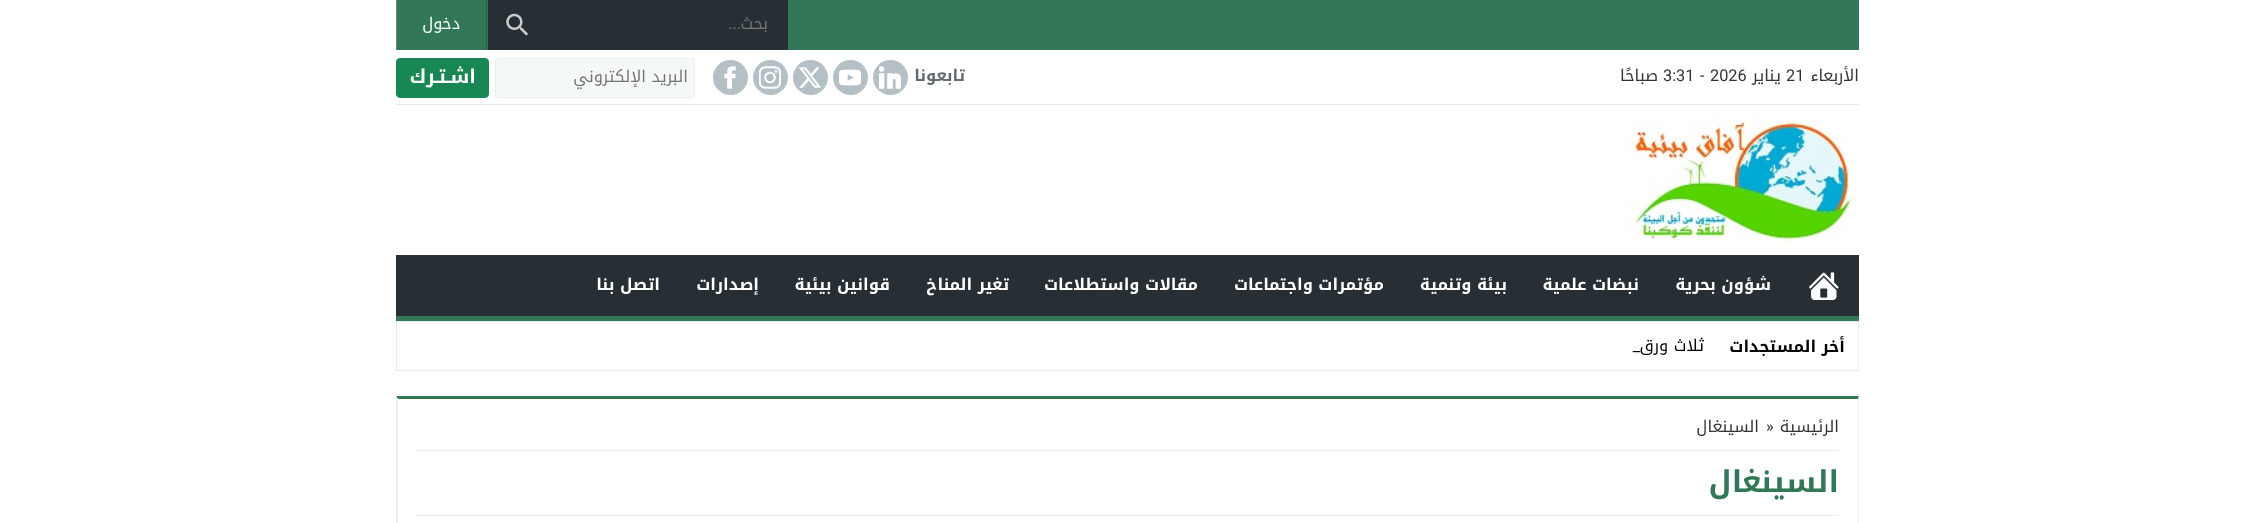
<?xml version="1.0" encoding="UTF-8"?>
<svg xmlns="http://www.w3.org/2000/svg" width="2255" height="523">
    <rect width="100%" height="100%" fill="#FFFFFF"/>
    <rect x="397" y="0" width="1462" height="50" fill="#327758"/>
    <rect x="488" y="0" width="300" height="50" fill="#272F34"/>
    <text x="768" y="29" font-family="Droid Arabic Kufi" font-size="16.25" direction="rtl" fill="#757575">بحث</text>
    <text x="741" y="29" font-family="Roboto" font-size="16.25" direction="rtl" fill="#757575">...</text>
    <image x="506" y="13" width="22" height="23" href="img_01.png"/>
    <rect x="486" y="0" width="1" height="50" fill="#285F46"/>
    <rect x="396" y="0" width="1" height="50" fill="#5B9279"/>
    <text x="460" y="29" font-family="Droid Arabic Kufi" font-size="16.25" direction="rtl" fill="#FFFFFF">دخول</text>
    <rect x="396" y="104" width="1463" height="1" fill="#E9EDF0"/>
    <text x="1859" y="81" font-family="Droid Arabic Kufi" font-size="16.25" direction="rtl" fill="#333333">الأربعاء</text>
    <text x="1786" y="81" font-family="Roboto" font-size="16.25" fill="#333333">21</text>
    <text x="1781" y="81" font-family="Droid Arabic Kufi" font-size="16.25" direction="rtl" fill="#333333">يناير</text>
    <text x="1710" y="81" font-family="Roboto" font-size="16.25" fill="#333333">2026</text>
    <text x="1700" y="81" font-family="Roboto" font-size="16.25" fill="#333333">-</text>
    <text x="1663" y="81" font-family="Roboto" font-size="16.25" fill="#333333">3:31</text>
    <text x="1658" y="81" font-family="Droid Arabic Kufi" font-size="16.25" direction="rtl" fill="#333333">صباحًا</text>
    <text x="965" y="81" font-family="Droid Arabic Kufi" font-size="16.25" font-weight="700" direction="rtl" fill="#646A72">تابعونا</text>
    <circle cx="890.5" cy="77.5" r="17.5" fill="#B4BFC6"/>
    <image x="879" y="66" width="22" height="23" href="img_02.png"/>
    <circle cx="850.5" cy="77.5" r="17.5" fill="#B4BFC6"/>
    <image x="839" y="69" width="22" height="17" href="img_03.png"/>
    <circle cx="810.5" cy="77.5" r="17.5" fill="#B4BFC6"/>
    <image x="799" y="67" width="22" height="21" href="img_04.png"/>
    <circle cx="770.5" cy="77.5" r="17.5" fill="#B4BFC6"/>
    <image x="759" y="66" width="22" height="23" href="img_05.png"/>
    <circle cx="730.5" cy="77.5" r="17.5" fill="#B4BFC6"/>
    <image x="724" y="66" width="12" height="23" href="img_06.png"/>
    <rect x="495.5" y="58.5" width="199" height="39" rx="2" fill="#F5F8F9" stroke="#EEEEEE"/>
    <text x="688" y="82" font-family="Droid Arabic Kufi" font-size="16.25" direction="rtl" fill="#757575">البريد الإلكتروني</text>
    <rect x="396.5" y="58.5" width="92" height="39" rx="3.5" fill="#198754" stroke="#198754"/>
    <text x="476" y="83" font-family="Droid Arabic Kufi" font-size="19" font-weight="700" direction="rtl" fill="#FFFFFF">اشـتـرك</text>
    <image x="1627" y="117" width="232" height="126" href="img_07.png"/>
    <rect x="396" y="255" width="1463" height="61" fill="#272F34"/>
    <rect x="396" y="316" width="1463" height="5" fill="#327758"/>
    <image x="1809" y="272" width="30" height="28" href="img_08.png"/>
    <text x="1771" y="290" font-family="Droid Arabic Kufi" font-size="16.25" font-weight="700" direction="rtl" fill="#FFFFFF">شؤون بحرية</text>
    <text x="1639" y="290" font-family="Droid Arabic Kufi" font-size="16.25" font-weight="700" direction="rtl" fill="#FFFFFF">نبضات علمية</text>
    <text x="1507" y="290" font-family="Droid Arabic Kufi" font-size="16.25" font-weight="700" direction="rtl" fill="#FFFFFF">بيئة وتنمية</text>
    <text x="1384" y="290" font-family="Droid Arabic Kufi" font-size="16.25" font-weight="700" direction="rtl" fill="#FFFFFF">مؤتمرات واجتماعات</text>
    <text x="1198" y="290" font-family="Droid Arabic Kufi" font-size="16.25" font-weight="700" direction="rtl" fill="#FFFFFF">مقالات واستطلاعات</text>
    <text x="1009" y="290" font-family="Droid Arabic Kufi" font-size="16.25" font-weight="700" direction="rtl" fill="#FFFFFF">تغير المناخ</text>
    <text x="890" y="290" font-family="Droid Arabic Kufi" font-size="16.25" font-weight="700" direction="rtl" fill="#FFFFFF">قوانين بيئية</text>
    <text x="759" y="290" font-family="Droid Arabic Kufi" font-size="16.25" font-weight="700" direction="rtl" fill="#FFFFFF">إصدارات</text>
    <text x="660" y="290" font-family="Droid Arabic Kufi" font-size="16.25" font-weight="700" direction="rtl" fill="#FFFFFF">اتصل بنا</text>
    <rect x="396.5" y="321.5" width="1462" height="49" fill="none" stroke="#E9EDF0"/>
    <text x="1845" y="352" font-family="Droid Arabic Kufi" font-size="16.25" font-weight="700" direction="rtl" fill="#000000">أخر المستجدات</text>
    <text x="1704" y="351" font-family="Droid Arabic Kufi" font-size="16.25" direction="rtl" fill="#000000">ثلاث ورق</text>
    <text x="1640" y="351" font-family="Roboto" font-size="16.25" direction="rtl" fill="#000000">_</text>
    <path d="M 396 396 H 1859 L 1858 399 H 398 Z" fill="#327758"/>
    <path d="M 1859 396 V 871 L 1858 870 V 399 Z" fill="#E9EDF0"/>
    <path d="M 396 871 V 396 L 398 399 V 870 Z" fill="#E9EDF0"/>
    <rect x="416" y="450" width="1423" height="1" fill="#E9EDF0"/>
    <text x="1839" y="432" font-family="Droid Arabic Kufi" font-size="16.25" direction="rtl" fill="#333333">الرئيسية</text>
    <text x="1766" y="432" font-family="Roboto" font-size="16.25" fill="#333333">»</text>
    <text x="1759" y="432" font-family="Droid Arabic Kufi" font-size="16.25" direction="rtl" fill="#333333">السينغال</text>
    <rect x="416" y="515" width="1423" height="1" fill="#E9EDF0"/>
    <text x="1839" y="492" font-family="Droid Arabic Kufi" font-size="30" font-weight="700" direction="rtl" fill="#327758">السينغال</text>
</svg>
